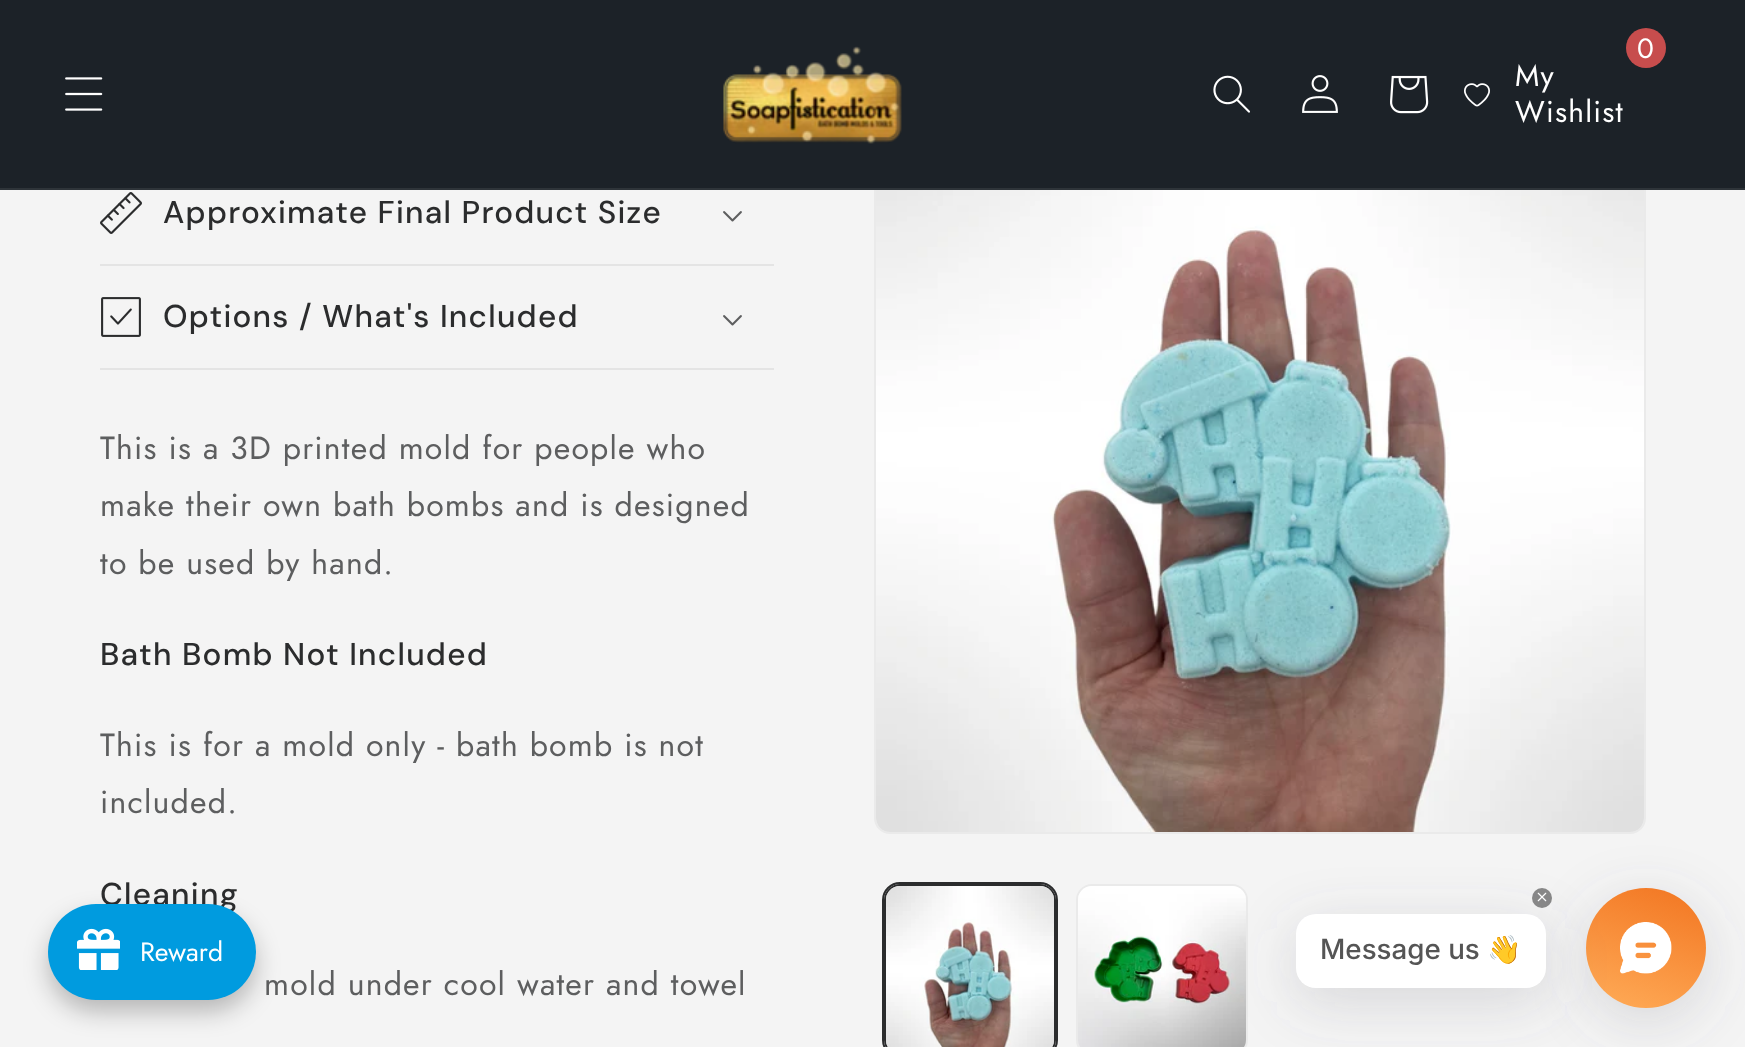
<?xml version="1.0" encoding="UTF-8"?>
<svg xmlns="http://www.w3.org/2000/svg" width="1745" height="1047">
    <defs>
        <filter id="blur1" x="-50%" y="-200%" width="200%" height="500%"><feGaussianBlur stdDeviation="29"/></filter>
        <linearGradient id="g1" gradientUnits="userSpaceOnUse" x1="1671" y1="876" x2="1621" y2="1020"><stop offset="0" stop-color="#F27521"/><stop offset="1" stop-color="#FFAC58"/></linearGradient>
        <filter id="blur2" x="-50%" y="-200%" width="200%" height="500%"><feGaussianBlur stdDeviation="12"/></filter>
    </defs>
    <rect width="100%" height="100%" fill="#F4F4F4"/>
    <rect x="875" y="61" width="770" height="772" rx="15" fill="none" stroke="#EAEAEA" stroke-width="2"/>
    <rect x="0" y="0" width="1745" height="188" fill="#1C2228"/>
    <rect x="0" y="188" width="1745" height="2" fill="#2E3439"/>
    <image x="65" y="77" width="38" height="34" href="img_01.png"/>
    <image x="723" y="46" width="179" height="98" href="img_02.png"/>
    <image x="1213" y="75" width="37" height="38" href="img_03.png"/>
    <image x="1302" y="75" width="36" height="38" href="img_04.png"/>
    <image x="1390" y="75" width="39" height="39" href="img_05.png"/>
    <circle cx="1646" cy="48" r="20" fill="#C74D4D"/>
    <text x="1637" y="58" font-family="Jost" font-size="28" letter-spacing="1.2" fill="#FFFFFF">0</text>
    <image x="1464" y="83" width="26" height="24" href="img_06.png"/>
    <text font-family="Jost" font-size="30" letter-spacing="1.2" fill="#FFFFFF">
        <tspan x="1515" y="86">My</tspan>
        <tspan x="1515" y="122">Wishlist</tspan>
    </text>
    <rect x="100" y="264" width="674" height="2" fill="#E4E4E4"/>
    <image x="100" y="192" width="42" height="42" href="img_07.png"/>
    <text x="163" y="223" font-family="DM Sans" font-size="31.5" font-weight="500" letter-spacing="1.25" fill="#2B2C2D">Approximate Final Product Size</text>
    <image x="723" y="211" width="19" height="11" href="img_08.png"/>
    <rect x="100" y="368" width="674" height="2" fill="#E4E4E4"/>
    <image x="101" y="297" width="40" height="40" href="img_09.png"/>
    <text x="163" y="327" font-family="DM Sans" font-size="31.5" font-weight="500" letter-spacing="1.25" fill="#2B2C2D">Options / What's Included</text>
    <image x="723" y="315" width="19" height="11" href="img_08.png"/>
    <text font-family="Jost" font-size="32" letter-spacing="1.2" fill="#5D5E5F">
        <tspan x="100" y="459">This is a 3D printed mold for people who</tspan>
        <tspan x="100" y="516">make their own bath bombs and is designed</tspan>
        <tspan x="100" y="574">to be used by hand.</tspan>
    </text>
    <text x="100" y="665" font-family="DM Sans" font-size="31.5" font-weight="500" letter-spacing="1.25" fill="#2B2C2D">Bath Bomb Not Included</text>
    <text font-family="Jost" font-size="32" letter-spacing="1.2" fill="#5D5E5F">
        <tspan x="100" y="756">This is for a mold only - bath bomb is not</tspan>
        <tspan x="100" y="813">included.</tspan>
    </text>
    <text x="100" y="905" font-family="DM Sans" font-size="31.5" font-weight="500" letter-spacing="1.25" fill="#2B2C2D">Cleaning</text>
    <text x="264" y="995" font-family="Jost" font-size="32" letter-spacing="1.2" fill="#5D5E5F">mold under cool water and towel</text>
    <image x="876" y="190" width="768" height="642" href="img_10.png"/>
    <rect x="883" y="883" width="174" height="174" rx="17" fill="none" stroke="#2B2C2D" stroke-width="2"/>
    <rect x="885" y="885" width="170" height="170" rx="15" fill="none" stroke="#2B2C2D" stroke-width="2"/>
    <image x="886" y="886" width="168" height="161" href="img_11.png"/>
    <rect x="1077" y="885" width="170" height="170" rx="15" fill="none" stroke="#EAEAEA" stroke-width="2"/>
    <image x="1078" y="886" width="168" height="161" href="img_12.png"/>
    <rect x="1586" y="902" width="120" height="120" rx="60" fill="#64646F" fill-opacity="0.2" filter="url(#blur1)"/>
    <circle cx="1646" cy="948" r="60" fill="url(#g1)"/>
    <image x="1620" y="922" width="52" height="52" href="img_14.png"/>
    <rect x="1296" y="928" width="250" height="74" rx="20" fill="#64646F" fill-opacity="0.2" filter="url(#blur1)"/>
    <rect x="1296" y="914" width="250" height="74" rx="20" fill="#FFFFFF"/>
    <circle cx="1542" cy="898" r="10" fill="#303030" fill-opacity="0.55"/>
    <image x="1537" y="892" width="10" height="10" href="img_13.png"/>
    <text x="1320" y="959" font-family="Inter" font-size="27.75" font-weight="500" fill="#555555">Message us</text>
    <text x="1487" y="959" font-family="Noto Color Emoji" font-size="27.75" fill="#555555">👋</text>
    <rect x="48" y="916" width="208" height="96" rx="48" fill="#000000" fill-opacity="0.25" filter="url(#blur2)"/>
    <rect x="48" y="904" width="208" height="96" rx="48" fill="#009BDF"/>
    <image x="77" y="928" width="43" height="42" href="img_15.png"/>
    <text x="140" y="961" font-family="Jost" font-size="26.5" fill="#FFFFFF">Reward</text>
</svg>
